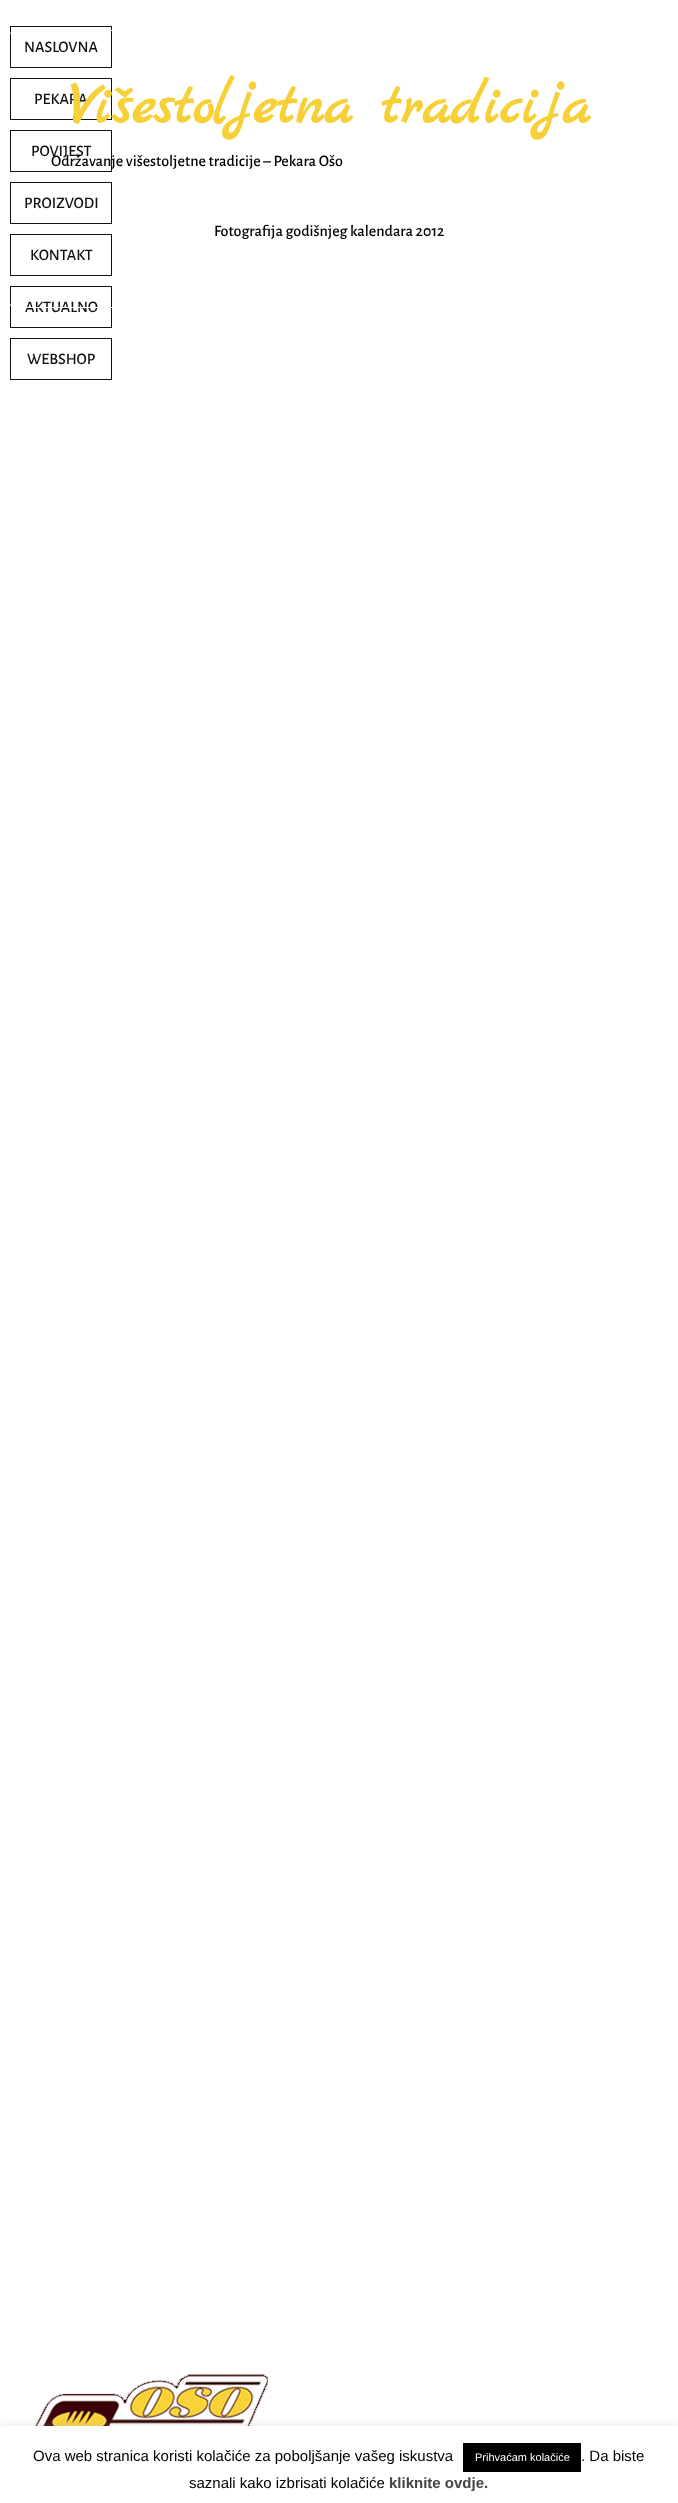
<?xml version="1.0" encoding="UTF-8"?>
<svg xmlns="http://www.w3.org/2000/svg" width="678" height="2503">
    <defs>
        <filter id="blur1" x="-50%" y="-200%" width="200%" height="500%"><feGaussianBlur stdDeviation="5"/></filter>
    </defs>
    <rect width="100%" height="100%" fill="#FFFFFF"/>
    <rect x="10.5" y="26.5" width="101" height="41" fill="none" stroke="#111111"/>
    <text x="24" y="52" font-family="Alegreya Sans" font-size="16" font-weight="500" fill="#111111">NASLOVNA</text>
    <rect x="10.5" y="78.5" width="101" height="41" fill="none" stroke="#111111"/>
    <text x="34" y="104" font-family="Alegreya Sans" font-size="16" font-weight="500" fill="#111111">PEKARA</text>
    <rect x="10.5" y="130.5" width="101" height="41" fill="none" stroke="#111111"/>
    <text x="31" y="156" font-family="Alegreya Sans" font-size="16" font-weight="500" fill="#111111">POVIJEST</text>
    <rect x="10.5" y="182.5" width="101" height="41" fill="none" stroke="#111111"/>
    <text x="24" y="208" font-family="Alegreya Sans" font-size="16" font-weight="500" fill="#111111">PROIZVODI</text>
    <rect x="10.5" y="234.5" width="101" height="41" fill="none" stroke="#111111"/>
    <text x="30" y="260" font-family="Alegreya Sans" font-size="16" font-weight="500" fill="#111111">KONTAKT</text>
    <rect x="10.5" y="286.5" width="101" height="41" fill="none" stroke="#111111"/>
    <text x="25" y="312" font-family="Alegreya Sans" font-size="16" font-weight="500" fill="#111111">AKTUALNO</text>
    <rect x="10.5" y="338.5" width="101" height="41" fill="none" stroke="#111111"/>
    <text x="27" y="364" font-family="Alegreya Sans" font-size="16" font-weight="500" fill="#111111">WEBSHOP</text>
    <image x="35" y="2374" width="233" height="52" href="img_01.png"/>
    <rect x="0.5" y="30.5" width="657" height="277" rx="19.5" fill="none" stroke="#FFFFFF"/>
    <text x="69" y="123" font-family="Marck Script" font-size="60" font-weight="700" fill="#F7D038">Višestoljetna tradicija</text>
    <text x="51" y="166" font-family="Alegreya Sans" font-size="16" font-weight="500" fill="#000000">Održavanje višestoljetne tradicije – Pekara Ošo</text>
    <text x="214" y="236" font-family="Alegreya Sans" font-size="16" font-weight="500" fill="#000000">Fotografija godišnjeg kalendara 2012</text>
    <rect x="0" y="2425" width="678" height="77" fill="#ACABAB" fill-opacity="0.3" filter="url(#blur1)"/>
    <rect x="0" y="2426" width="678" height="77" fill="#FFFFFF"/>
    <text x="33" y="2461" font-family="Liberation Sans" font-size="15" fill="#000000">Ova web stranica koristi kolačiće za poboljšanje vašeg iskustva</text>
    <rect x="463" y="2443" width="118" height="29" fill="#000000"/>
    <text x="475" y="2461" font-family="Liberation Sans" font-size="11" fill="#FFFFFF">Prihvaćam kolačiće</text>
    <text x="581" y="2461" font-family="Liberation Sans" font-size="15" fill="#000000">. Da biste</text>
    <text x="189" y="2488" font-family="Liberation Sans" font-size="15" fill="#000000">saznali kako izbrisati kolačiće</text>
    <text x="389" y="2488" font-family="Liberation Sans" font-size="15" font-weight="700" fill="#444444">kliknite ovdje.</text>
</svg>
